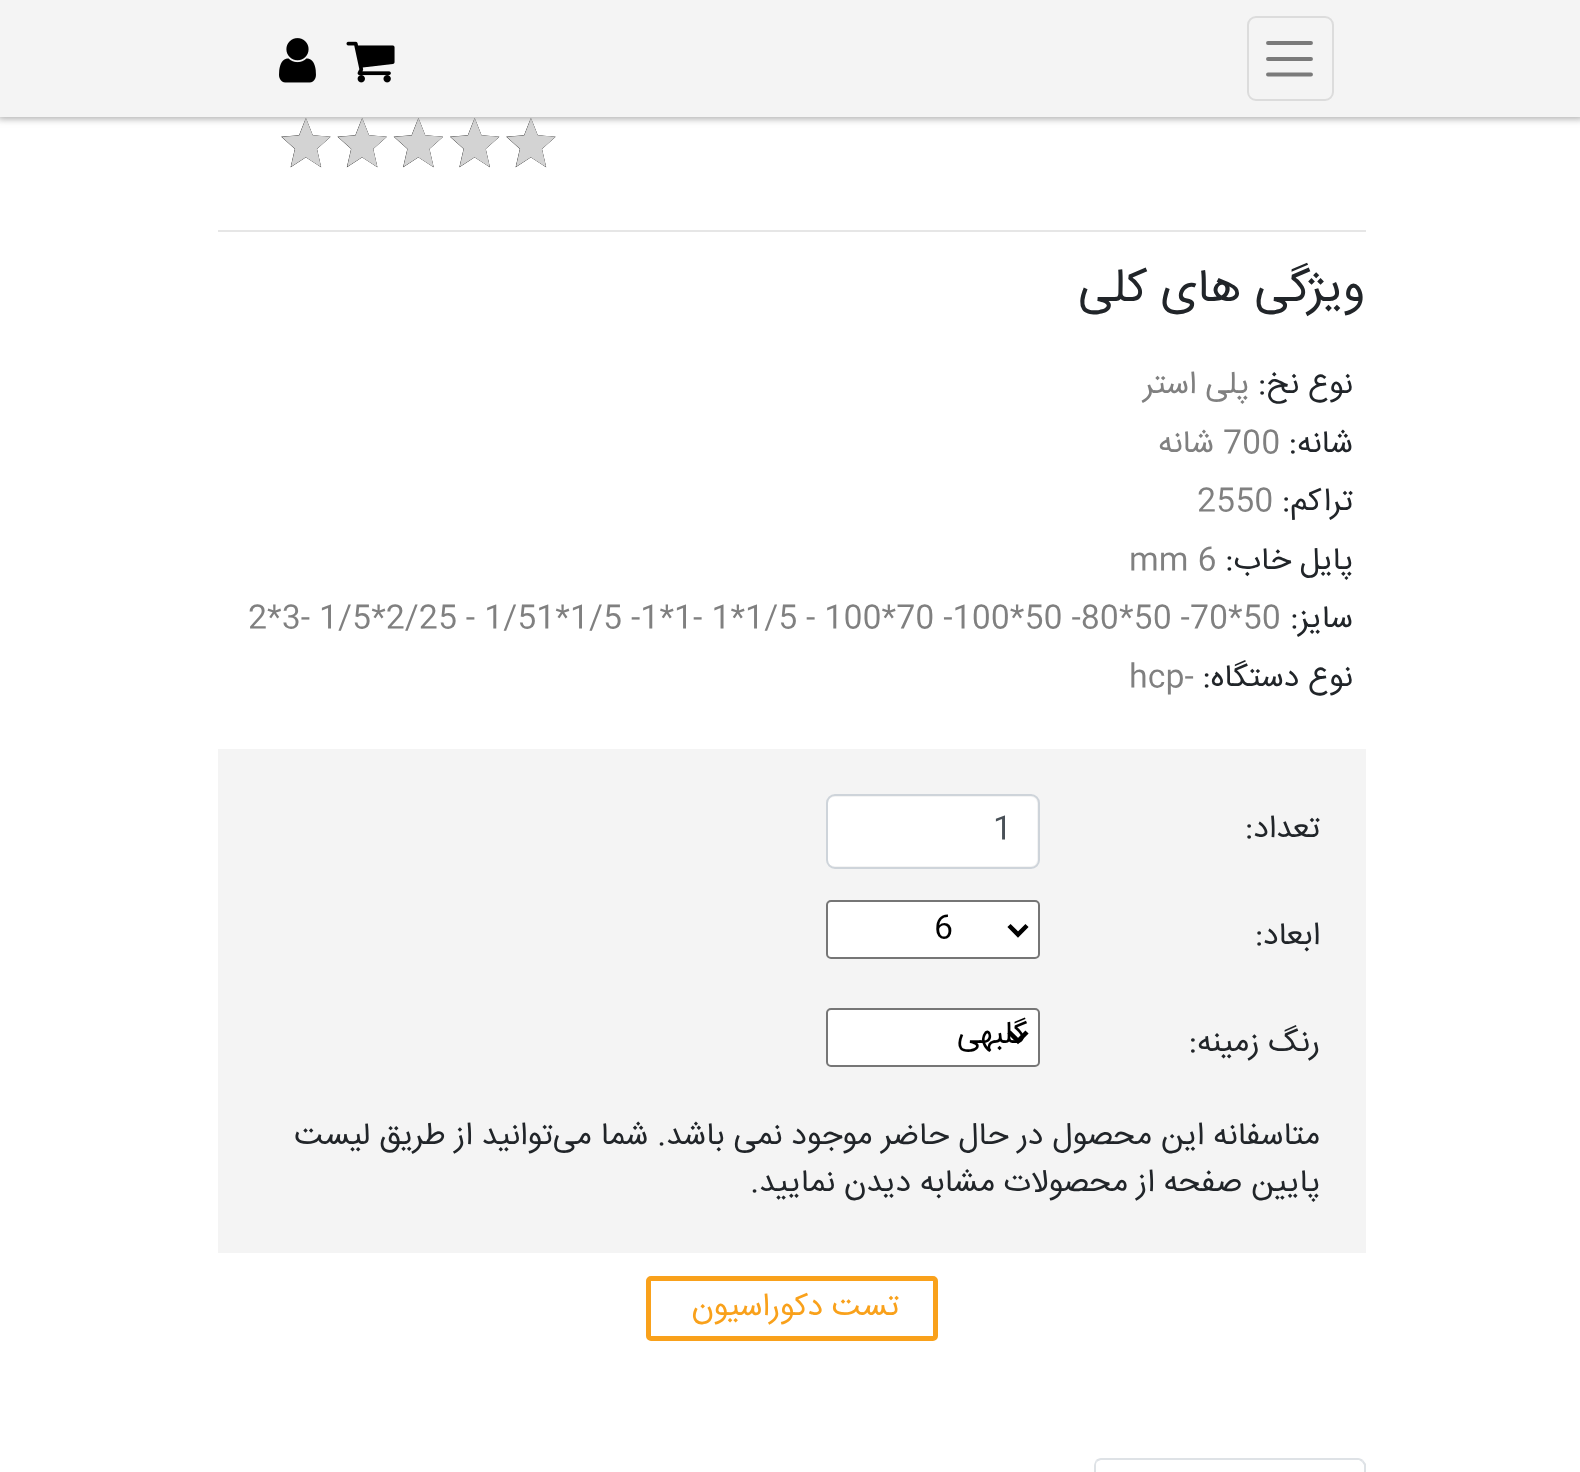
<?xml version="1.0" encoding="UTF-8"?>
<svg xmlns="http://www.w3.org/2000/svg" width="1580" height="1472">
    <defs>
        <filter id="blur1" x="-50%" y="-200%" width="200%" height="500%"><feGaussianBlur stdDeviation="3.5"/></filter>
    </defs>
    <rect width="100%" height="100%" fill="#FFFFFF"/>
    <image x="506" y="118" width="50" height="50" href="img_03.png"/>
    <image x="450" y="118" width="50" height="50" href="img_04.png"/>
    <image x="393" y="118" width="50" height="50" href="img_05.png"/>
    <image x="337" y="118" width="50" height="50" href="img_06.png"/>
    <image x="281" y="118" width="50" height="50" href="img_03.png"/>
    <rect x="-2" y="-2" width="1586" height="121" fill="#AFAFAF" filter="url(#blur1)"/>
    <rect x="0" y="0" width="1580" height="117" fill="#F4F4F4"/>
    <rect x="1248" y="17" width="85" height="83" rx="8" fill="none" stroke="#DCDCDC" stroke-width="2"/>
    <path d="M 1268 43 H 1311 M 1268 59 H 1311 M 1268 74.5 H 1311" fill="none" stroke="#7A7A7A" stroke-width="3.9" stroke-linecap="round"/>
    <image x="346" y="41" width="49" height="42" href="img_01.png"/>
    <image x="279" y="38" width="37" height="45" href="img_02.png"/>
    <rect x="218" y="230" width="1148" height="2" fill="#E6E6E6"/>
    <text x="1365" y="301" font-family="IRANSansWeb" font-size="47.25" direction="rtl" fill="#212529">ویژگی های کلی</text>
    <text x="1353" y="393" font-family="IRANSansWeb" font-size="31.5" direction="rtl" fill="#212529">نوع نخ:</text>
    <text x="1249" y="393" font-family="IRANSansWeb" font-size="31.5" direction="rtl" fill="#808080">پلی استر</text>
    <text x="1353" y="452" font-family="IRANSansWeb" font-size="31.5" direction="rtl" fill="#212529">شانه:</text>
    <text x="1223" y="452" font-family="IRANSansWeb" font-size="31.5" fill="#808080">700</text>
    <text x="1214" y="452" font-family="IRANSansWeb" font-size="31.5" direction="rtl" fill="#808080">شانه</text>
    <text x="1353" y="510" font-family="IRANSansWeb" font-size="31.5" direction="rtl" fill="#212529">تراکم:</text>
    <text x="1197" y="510" font-family="IRANSansWeb" font-size="31.5" fill="#808080">2550</text>
    <text x="1353" y="569" font-family="IRANSansWeb" font-size="31.5" direction="rtl" fill="#212529">پایل خاب:</text>
    <text x="1129" y="569" font-family="IRANSansWeb" font-size="31.5" fill="#808080">mm 6</text>
    <text x="1353" y="627" font-family="IRANSansWeb" font-size="31.5" direction="rtl" fill="#212529">سایز:</text>
    <text x="248" y="627" font-family="IRANSansWeb" font-size="31.5" fill="#808080">2*3- 1/5*2/25 - 1/51*1/5 -1*1- 1*1/5 - 100*70 -100*50 -80*50 -70*50</text>
    <text x="1353" y="686" font-family="IRANSansWeb" font-size="31.5" direction="rtl" fill="#212529">نوع دستگاه:</text>
    <text x="1129" y="686" font-family="IRANSansWeb" font-size="31.5" fill="#808080">hcp-</text>
    <rect x="218" y="749" width="1148" height="504" fill="#F4F4F4"/>
    <text x="1320" y="837" font-family="IRANSansWeb" font-size="31.5" direction="rtl" fill="#212529">تعداد:</text>
    <rect x="828" y="797" width="209" height="69" rx="6" fill="#FFFFFF"/>
    <rect x="827" y="795" width="212" height="73" rx="8" fill="none" stroke="#CED4DA" stroke-width="2"/>
    <text x="993" y="838" font-family="IRANSansWeb" font-size="31.5" fill="#495057">1</text>
    <text x="1320" y="944" font-family="IRANSansWeb" font-size="31.5" direction="rtl" fill="#212529">ابعاد:</text>
    <rect x="827" y="901" width="212" height="57" rx="4" fill="#FFFFFF" stroke="#767676" stroke-width="2"/>
    <path d="M 1009 925.5 L 1018 934.5 L 1027 925.5" fill="none" stroke="#000000" stroke-width="4.5"/>
    <text x="934" y="937" font-family="IRANSansWeb" font-size="31.5" fill="#000000">6</text>
    <text x="1320" y="1051" font-family="IRANSansWeb" font-size="31.5" direction="rtl" fill="#212529">رنگ زمینه:</text>
    <rect x="827" y="1009" width="212" height="57" rx="4" fill="#FFFFFF" stroke="#767676" stroke-width="2"/>
    <path d="M 1009 1032 L 1018 1041 L 1027 1032" fill="none" stroke="#000000" stroke-width="4.5"/>
    <text x="1027" y="1043" font-family="IRANSansWeb" font-size="31.5" direction="rtl" fill="#000000">گلبهی</text>
    <text font-family="IRANSansWeb" font-size="31.5" direction="rtl" fill="#212529">
        <tspan x="1320" y="1144">متاسفانه این محصول در حال حاضر موجود نمی باشد. شما می‌توانید از طریق لیست</tspan>
        <tspan x="1320" y="1191">پایین صفحه از محصولات مشابه دیدن نمایید.</tspan>
    </text>
    <rect x="648.5" y="1278.5" width="287" height="60" rx="2.5" fill="none" stroke="#F9A11B" stroke-width="5"/>
    <text x="899" y="1315" font-family="IRANSansWeb" font-size="31.5" direction="rtl" fill="#F9A11B">تست دکوراسیون</text>
    <path d="M 1101 1458 C 1099 1458 1097 1459 1096 1460 L 1097 1462 C 1098 1461 1100 1460 1101 1460 H 1359 L 1362 1462 L 1363 1460 C 1362 1459 1360 1458 1358 1458 Z" fill="#DEE2E6"/>
    <path d="M 1366 1464 V 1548 L 1364 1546 V 1465 L 1362 1462 L 1363 1460 Z" fill="#DEE2E6"/>
    <path d="M 1096 1460 C 1095 1462 1094 1464 1094 1466 V 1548 L 1096 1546 V 1466 C 1096 1464 1096 1463 1097 1462 Z" fill="#DEE2E6"/>
</svg>
